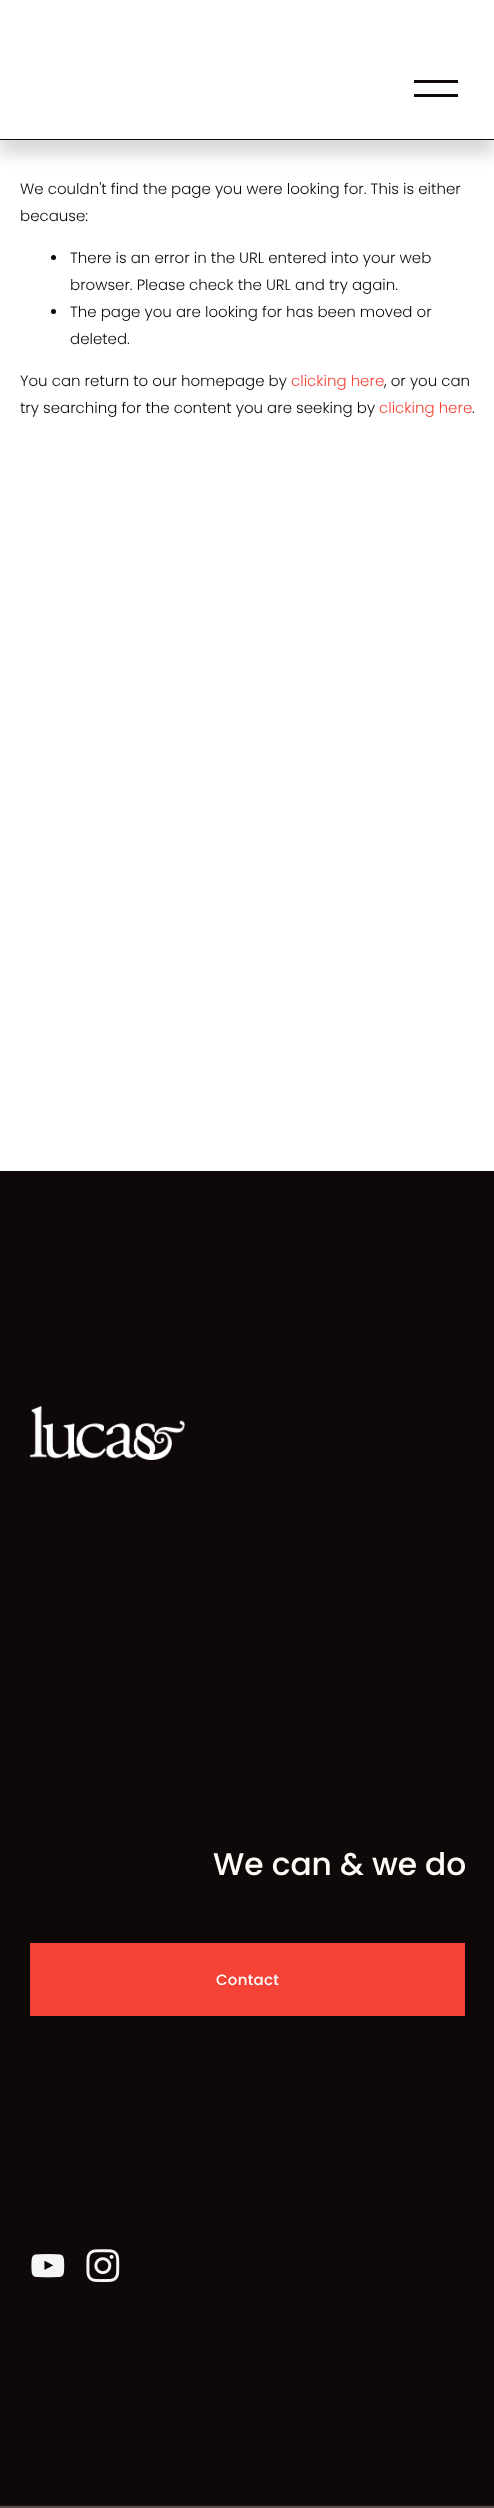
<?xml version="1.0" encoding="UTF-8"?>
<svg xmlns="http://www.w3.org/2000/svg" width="494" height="2508">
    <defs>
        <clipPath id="clip1"><rect x="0" y="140" width="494" height="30"/></clipPath>
        <filter id="blur1" x="-50%" y="-200%" width="200%" height="500%"><feGaussianBlur stdDeviation="7.5"/></filter>
    </defs>
    <rect width="100%" height="100%" fill="#FFFFFF"/>
    <g clip-path="url(#clip1)">
        <rect x="0" y="50" width="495" height="105" fill="#DBDADA" filter="url(#blur1)"/>
    </g>
    <rect x="414" y="80" width="44" height="3" fill="#0E0808"/>
    <rect x="414" y="94" width="44" height="3" fill="#0E0808"/>
    <rect x="0" y="139" width="494" height="1" fill="#0E0808"/>
    <text font-family="Poppins" font-size="15" font-weight="300" fill="#0E0808">
        <tspan x="20" y="194">We couldn't find the page you were looking for. This is either</tspan>
        <tspan x="20" y="221">because:</tspan>
    </text>
    <circle cx="53.5" cy="257.5" r="2.5" fill="#0E0808"/>
    <text font-family="Poppins" font-size="15" font-weight="300" fill="#0E0808">
        <tspan x="70" y="263">There is an error in the URL entered into your web</tspan>
        <tspan x="70" y="290">browser. Please check the URL and try again.</tspan>
    </text>
    <circle cx="53.5" cy="311.5" r="2.5" fill="#0E0808"/>
    <text font-family="Poppins" font-size="15" font-weight="300" fill="#0E0808">
        <tspan x="70" y="317">The page you are looking for has been moved or</tspan>
        <tspan x="70" y="344">deleted.</tspan>
    </text>
    <text x="20" y="386" font-family="Poppins" font-size="15" font-weight="300" fill="#0E0808">You can return to our homepage by</text>
    <text x="291" y="386" font-family="Poppins" font-size="15" font-weight="300" fill="#F44236">clicking here</text>
    <text x="384" y="386" font-family="Poppins" font-size="15" font-weight="300" fill="#0E0808">, or you can</text>
    <text x="20" y="413" font-family="Poppins" font-size="15" font-weight="300" fill="#0E0808">try searching for the content you are seeking by</text>
    <text x="379" y="413" font-family="Poppins" font-size="15" font-weight="300" fill="#F44236">clicking here</text>
    <text x="472" y="413" font-family="Poppins" font-size="15" font-weight="300" fill="#0E0808">.</text>
    <rect x="0" y="1171" width="494" height="1335" fill="#0E0808"/>
    <image x="30" y="1406" width="155" height="54" href="img_01.png"/>
    <text x="213" y="1875" font-family="Poppins" font-size="31.25" font-weight="500" fill="#FFFDF9">We can &amp; we do</text>
    <rect x="30" y="1943" width="435" height="73" fill="#F44236"/>
    <text x="216" y="1985" font-family="Poppins" font-size="15" font-weight="500" letter-spacing="0.25" fill="#FFFFFF">Contact</text>
    <image x="31" y="2254" width="34" height="24" href="img_02.png"/>
    <image x="86" y="2249" width="34" height="34" href="img_03.png"/>
    <path d="M -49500 1840.5 V 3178.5 M 0 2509.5 H 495" fill="none" stroke="#554949" stroke-width="7.5" stroke-linecap="square"/>
</svg>
